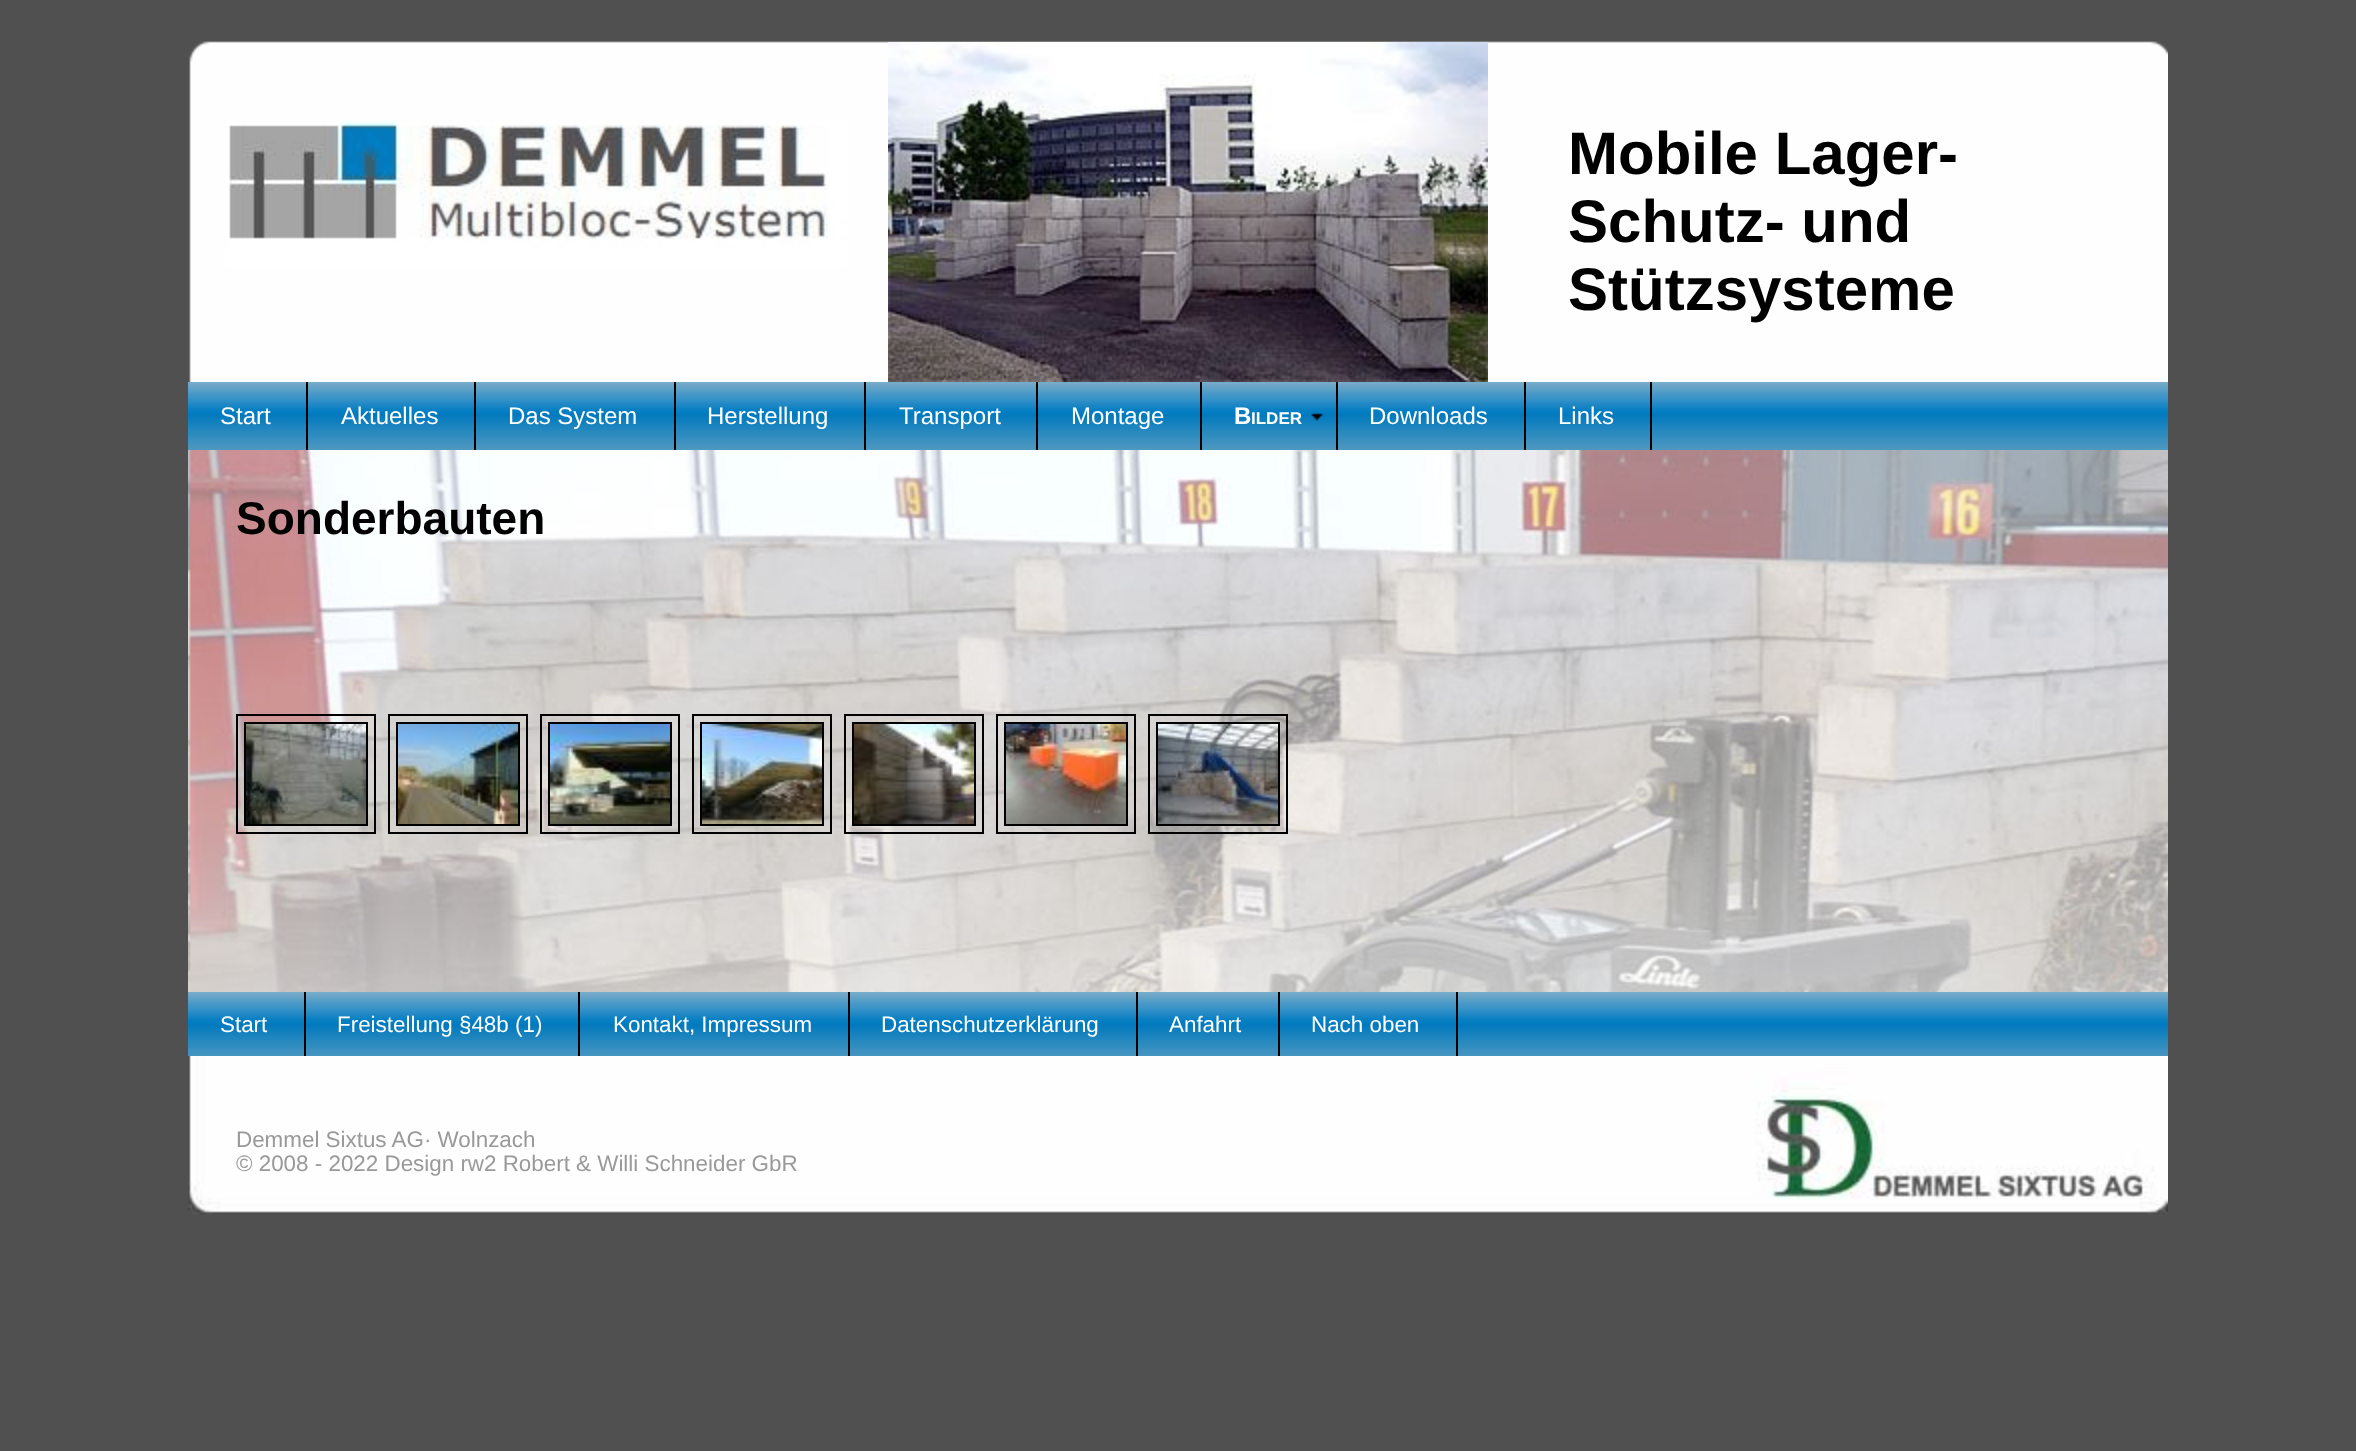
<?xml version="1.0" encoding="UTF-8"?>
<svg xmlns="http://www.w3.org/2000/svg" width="2356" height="1451">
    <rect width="100%" height="100%" fill="#505050"/>
    <image x="189" y="41" width="1979" height="341" href="img_01.png"/>
    <image x="888" y="42" width="600" height="340" href="img_02.png"/>
    <text font-family="Liberation Sans" font-size="60" font-weight="700" fill="#000000">
        <tspan x="1568" y="174">Mobile Lager-</tspan>
        <tspan x="1568" y="242">Schutz- und</tspan>
        <tspan x="1568" y="310">Stützsysteme</tspan>
    </text>
    <image x="188" y="382" width="1980" height="68" href="img_03.png"/>
    <rect x="306" y="382" width="2" height="68" fill="#000000"/>
    <text x="220" y="424" font-family="Liberation Sans" font-size="24" fill="#FFFFFF">Start</text>
    <rect x="474" y="382" width="2" height="68" fill="#000000"/>
    <text x="341" y="424" font-family="Liberation Sans" font-size="24" fill="#FFFFFF">Aktuelles</text>
    <rect x="674" y="382" width="2" height="68" fill="#000000"/>
    <text x="508" y="424" font-family="Liberation Sans" font-size="24" fill="#FFFFFF">Das System</text>
    <rect x="864" y="382" width="2" height="68" fill="#000000"/>
    <text x="707" y="424" font-family="Liberation Sans" font-size="24" fill="#FFFFFF">Herstellung</text>
    <rect x="1036" y="382" width="2" height="68" fill="#000000"/>
    <text x="899" y="424" font-family="Liberation Sans" font-size="24" fill="#FFFFFF">Transport</text>
    <rect x="1200" y="382" width="2" height="68" fill="#000000"/>
    <text x="1071" y="424" font-family="Liberation Sans" font-size="24" fill="#FFFFFF">Montage</text>
    <image x="1311" y="413" width="12" height="8" href="img_04.png"/>
    <rect x="1336" y="382" width="2" height="68" fill="#000000"/>
    <text x="1234" y="424" font-family="Liberation Sans" font-size="24" font-weight="700" fill="#FFFFFF">B</text>
    <text x="1251" y="424" font-family="Liberation Sans" font-size="17" font-weight="700" fill="#FFFFFF">ILDER</text>
    <rect x="1524" y="382" width="2" height="68" fill="#000000"/>
    <text x="1369" y="424" font-family="Liberation Sans" font-size="24" fill="#FFFFFF">Downloads</text>
    <rect x="1650" y="382" width="2" height="68" fill="#000000"/>
    <text x="1558" y="424" font-family="Liberation Sans" font-size="24" fill="#FFFFFF">Links</text>
    <image x="188" y="450" width="1980" height="542" href="img_05.png"/>
    <text x="236" y="534" font-family="Liberation Sans" font-size="46" font-weight="700" fill="#000000">Sonderbauten</text>
    <rect x="237" y="715" width="138" height="118" fill="none" stroke="#000000" stroke-width="2"/>
    <rect x="245" y="723" width="122" height="102" fill="none" stroke="#000000" stroke-width="2"/>
    <image x="246" y="724" width="120" height="100" href="img_06.png"/>
    <rect x="389" y="715" width="138" height="118" fill="none" stroke="#000000" stroke-width="2"/>
    <rect x="397" y="723" width="122" height="102" fill="none" stroke="#000000" stroke-width="2"/>
    <image x="398" y="724" width="120" height="100" href="img_07.png"/>
    <rect x="541" y="715" width="138" height="118" fill="none" stroke="#000000" stroke-width="2"/>
    <rect x="549" y="723" width="122" height="102" fill="none" stroke="#000000" stroke-width="2"/>
    <image x="550" y="724" width="120" height="100" href="img_08.png"/>
    <rect x="693" y="715" width="138" height="118" fill="none" stroke="#000000" stroke-width="2"/>
    <rect x="701" y="723" width="122" height="102" fill="none" stroke="#000000" stroke-width="2"/>
    <image x="702" y="724" width="120" height="100" href="img_09.png"/>
    <rect x="845" y="715" width="138" height="118" fill="none" stroke="#000000" stroke-width="2"/>
    <rect x="853" y="723" width="122" height="102" fill="none" stroke="#000000" stroke-width="2"/>
    <image x="854" y="724" width="120" height="100" href="img_10.png"/>
    <rect x="997" y="715" width="138" height="118" fill="none" stroke="#000000" stroke-width="2"/>
    <rect x="1005" y="723" width="122" height="102" fill="none" stroke="#000000" stroke-width="2"/>
    <image x="1006" y="724" width="120" height="100" href="img_11.png"/>
    <rect x="1149" y="715" width="138" height="118" fill="none" stroke="#000000" stroke-width="2"/>
    <rect x="1157" y="723" width="122" height="102" fill="none" stroke="#000000" stroke-width="2"/>
    <image x="1158" y="724" width="120" height="100" href="img_12.png"/>
    <image x="188" y="1056" width="1980" height="160" href="img_13.png"/>
    <image x="188" y="992" width="1980" height="64" href="img_14.png"/>
    <rect x="304" y="992" width="2" height="64" fill="#000000"/>
    <text x="220" y="1032" font-family="Liberation Sans" font-size="22.4" fill="#FFFFFF">Start</text>
    <rect x="578" y="992" width="2" height="64" fill="#000000"/>
    <text x="337" y="1032" font-family="Liberation Sans" font-size="22.4" fill="#FFFFFF">Freistellung §48b (1)</text>
    <rect x="848" y="992" width="2" height="64" fill="#000000"/>
    <text x="613" y="1032" font-family="Liberation Sans" font-size="22.4" fill="#FFFFFF">Kontakt, Impressum</text>
    <rect x="1136" y="992" width="2" height="64" fill="#000000"/>
    <text x="881" y="1032" font-family="Liberation Sans" font-size="22.4" fill="#FFFFFF">Datenschutzerklärung</text>
    <rect x="1278" y="992" width="2" height="64" fill="#000000"/>
    <text x="1169" y="1032" font-family="Liberation Sans" font-size="22.4" fill="#FFFFFF">Anfahrt</text>
    <rect x="1456" y="992" width="2" height="64" fill="#000000"/>
    <text x="1311" y="1032" font-family="Liberation Sans" font-size="22.4" fill="#FFFFFF">Nach oben</text>
    <text font-family="Liberation Sans" font-size="22.4" fill="#999999">
        <tspan x="236" y="1147">Demmel Sixtus AG· Wolnzach</tspan>
        <tspan x="236" y="1171">© 2008 - 2022 Design rw2 Robert &amp; Willi Schneider GbR</tspan>
    </text>
</svg>
